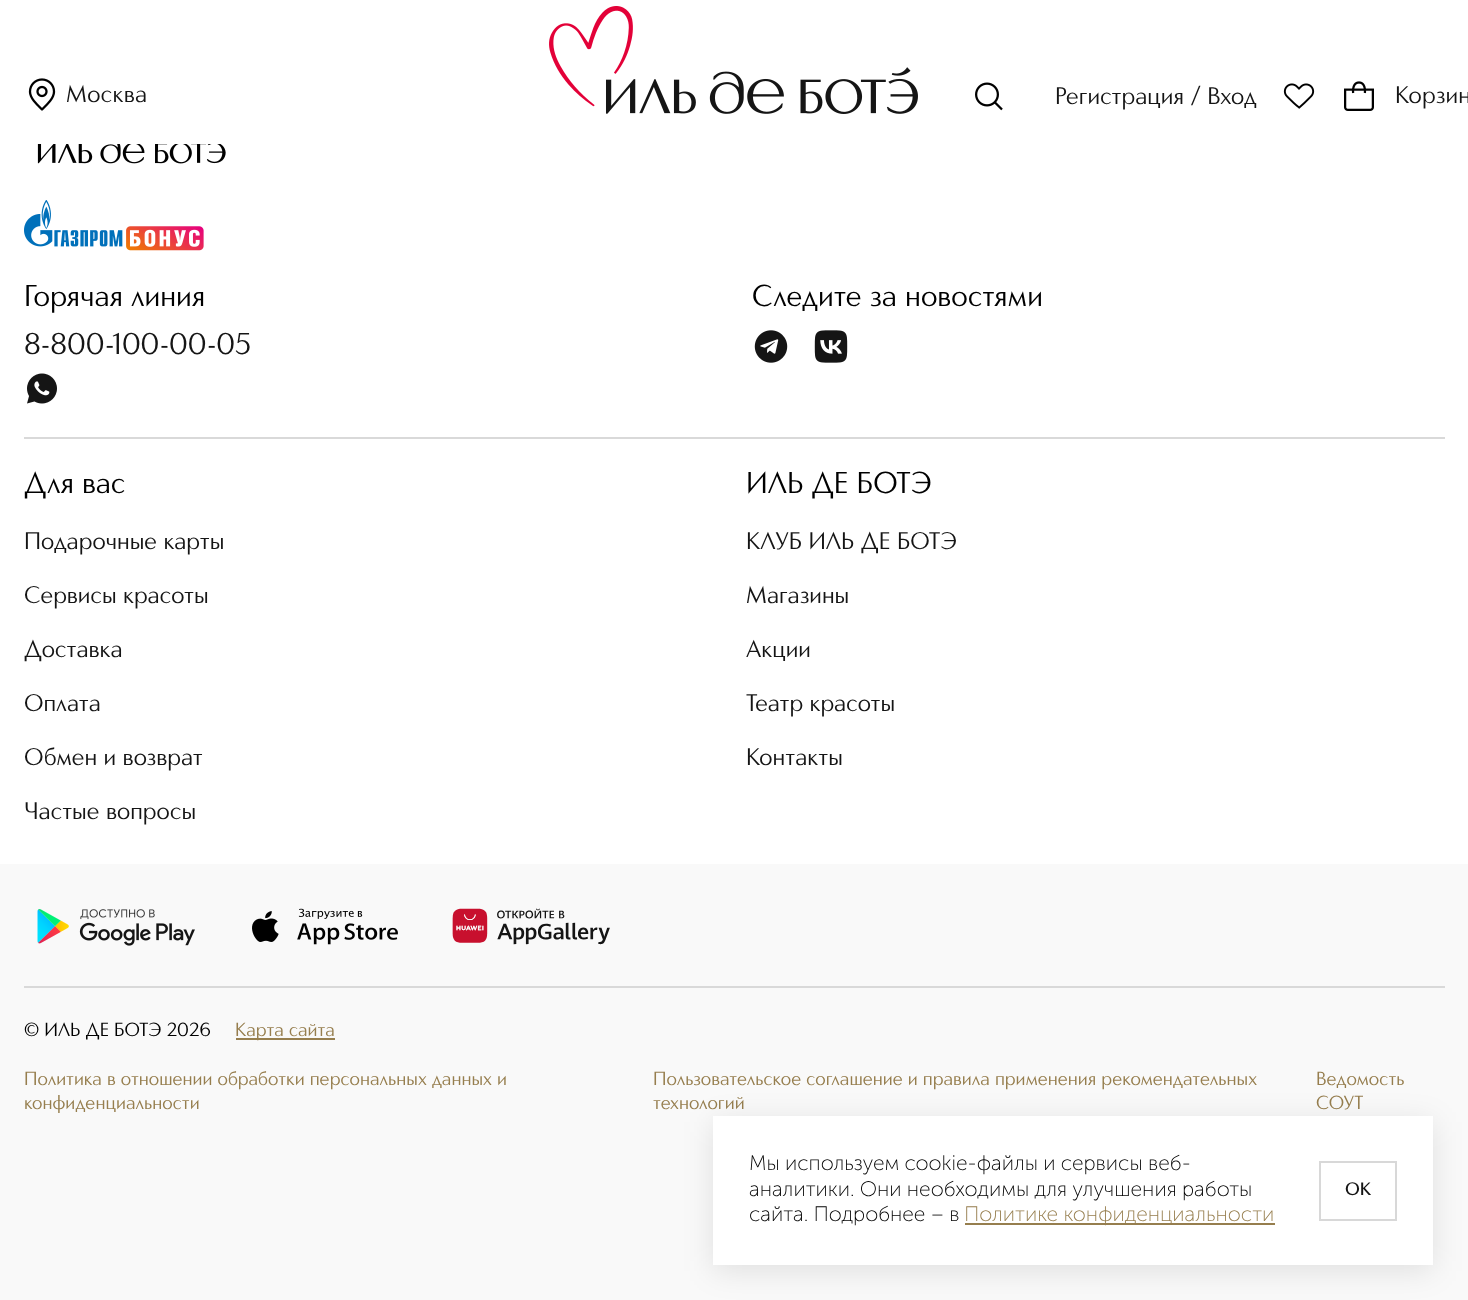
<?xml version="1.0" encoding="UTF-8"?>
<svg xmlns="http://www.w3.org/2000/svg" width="1468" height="1300">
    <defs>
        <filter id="blur1" x="-50%" y="-200%" width="200%" height="500%"><feGaussianBlur stdDeviation="15"/></filter>
    </defs>
    <rect width="100%" height="100%" fill="#F9F9F9"/>
    <rect x="0" y="0" width="1468" height="864" fill="#FFFFFF"/>
    <image x="28" y="78" width="28" height="33" href="img_01.png"/>
    <text x="66" y="102" font-family="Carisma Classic" font-size="24" letter-spacing="0.25" fill="#151515">Москва</text>
    <image x="549" y="6" width="369" height="108" href="img_02.png"/>
    <image x="975" y="82" width="28" height="29" href="img_03.png"/>
    <text x="1055" y="104" font-family="Carisma Classic" font-size="24" fill="#151515">Регистрация / Вход</text>
    <image x="1283" y="83" width="32" height="26" href="img_04.png"/>
    <image x="1344" y="81" width="30" height="30" href="img_05.png"/>
    <text x="1395" y="103" font-family="Carisma Classic" font-size="24" letter-spacing="0.25" fill="#151515">Корзин</text>
    <image x="37" y="144" width="189" height="20" href="img_06.png"/>
    <image x="24" y="200" width="180" height="51" href="img_07.png"/>
    <text x="24" y="306" font-family="Carisma Classic" font-size="30" fill="#000000">Горячая линия</text>
    <text x="24" y="354" font-family="Carisma Classic" font-size="30" fill="#151515">8-800-100-00-05</text>
    <image x="27" y="373" width="30" height="31" href="img_08.png"/>
    <text x="752" y="306" font-family="Carisma Classic" font-size="30" fill="#000000">Следите за новостями</text>
    <image x="754" y="330" width="34" height="33" href="img_09.png"/>
    <image x="814" y="330" width="34" height="33" href="img_10.png"/>
    <rect x="24" y="437" width="1421" height="2" fill="#D9D9D9"/>
    <text x="24" y="493" font-family="Carisma Classic" font-size="30" fill="#000000">Для вас</text>
    <text x="24" y="549" font-family="Carisma Classic" font-size="24" fill="#151515">Подарочные карты</text>
    <text x="24" y="603" font-family="Carisma Classic" font-size="24" fill="#151515">Сервисы красоты</text>
    <text x="24" y="657" font-family="Carisma Classic" font-size="24" fill="#151515">Доставка</text>
    <text x="24" y="711" font-family="Carisma Classic" font-size="24" fill="#151515">Оплата</text>
    <text x="24" y="765" font-family="Carisma Classic" font-size="24" fill="#151515">Обмен и возврат</text>
    <text x="24" y="819" font-family="Carisma Classic" font-size="24" fill="#151515">Частые вопросы</text>
    <text x="746" y="493" font-family="Carisma Classic" font-size="30" fill="#000000">ИЛЬ ДЕ БОТЭ</text>
    <text x="746" y="549" font-family="Carisma Classic" font-size="24" fill="#151515">КЛУБ ИЛЬ ДЕ БОТЭ</text>
    <text x="746" y="603" font-family="Carisma Classic" font-size="24" fill="#151515">Магазины</text>
    <text x="746" y="657" font-family="Carisma Classic" font-size="24" fill="#151515">Акции</text>
    <text x="746" y="711" font-family="Carisma Classic" font-size="24" fill="#151515">Театр красоты</text>
    <text x="746" y="765" font-family="Carisma Classic" font-size="24" fill="#151515">Контакты</text>
    <image x="37" y="909" width="158" height="37" href="img_11.png"/>
    <image x="252" y="908" width="146" height="37" href="img_12.png"/>
    <image x="452" y="908" width="158" height="37" href="img_13.png"/>
    <rect x="24" y="986" width="1421" height="2" fill="#D9D9D9"/>
    <text x="24" y="1036" font-family="Carisma Classic" font-size="18.95" fill="#000000">© ИЛЬ ДЕ БОТЭ 2026</text>
    <rect x="236" y="1038" width="99" height="2" fill="#967E4E"/>
    <text x="235" y="1036" font-family="Carisma Classic" font-size="18.95" fill="#967E4E">Карта сайта</text>
    <text font-family="Carisma Classic" font-size="18.95" fill="#967E4E">
        <tspan x="24" y="1085">Политика в отношении обработки персональных данных и</tspan>
        <tspan x="24" y="1109">конфиденциальности</tspan>
    </text>
    <text font-family="Carisma Classic" font-size="18.95" fill="#967E4E">
        <tspan x="653" y="1085">Пользовательское соглашение и правила применения рекомендательных</tspan>
        <tspan x="653" y="1109">технологий</tspan>
    </text>
    <text font-family="Carisma Classic" font-size="18.95" fill="#967E4E">
        <tspan x="1316" y="1085">Ведомость</tspan>
        <tspan x="1316" y="1109">СОУТ</tspan>
    </text>
    <rect x="713" y="1122" width="720" height="149" fill="#000000" fill-opacity="0.1" filter="url(#blur1)"/>
    <rect x="713" y="1116" width="720" height="149" fill="#FFFFFF"/>
    <text font-family="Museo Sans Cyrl" font-size="21" font-weight="200" fill="#000000">
        <tspan x="749" y="1170">Мы используем cookie-файлы и сервисы веб-</tspan>
        <tspan x="749" y="1196">аналитики. Они необходимы для улучшения работы</tspan>
        <tspan x="749" y="1221">сайта. Подробнее – в</tspan>
    </text>
    <rect x="965" y="1223" width="310" height="2" fill="#967E4E"/>
    <text x="964" y="1221" font-family="Museo Sans Cyrl" font-size="21" font-weight="200" fill="#967E4E">Политике конфиденциальности</text>
    <rect x="1320" y="1162" width="76" height="58" fill="none" stroke="#D8D8D8" stroke-width="2"/>
    <text x="1345" y="1195" font-family="Carisma Classic" font-size="18" font-weight="500" fill="#151515">OK</text>
</svg>
